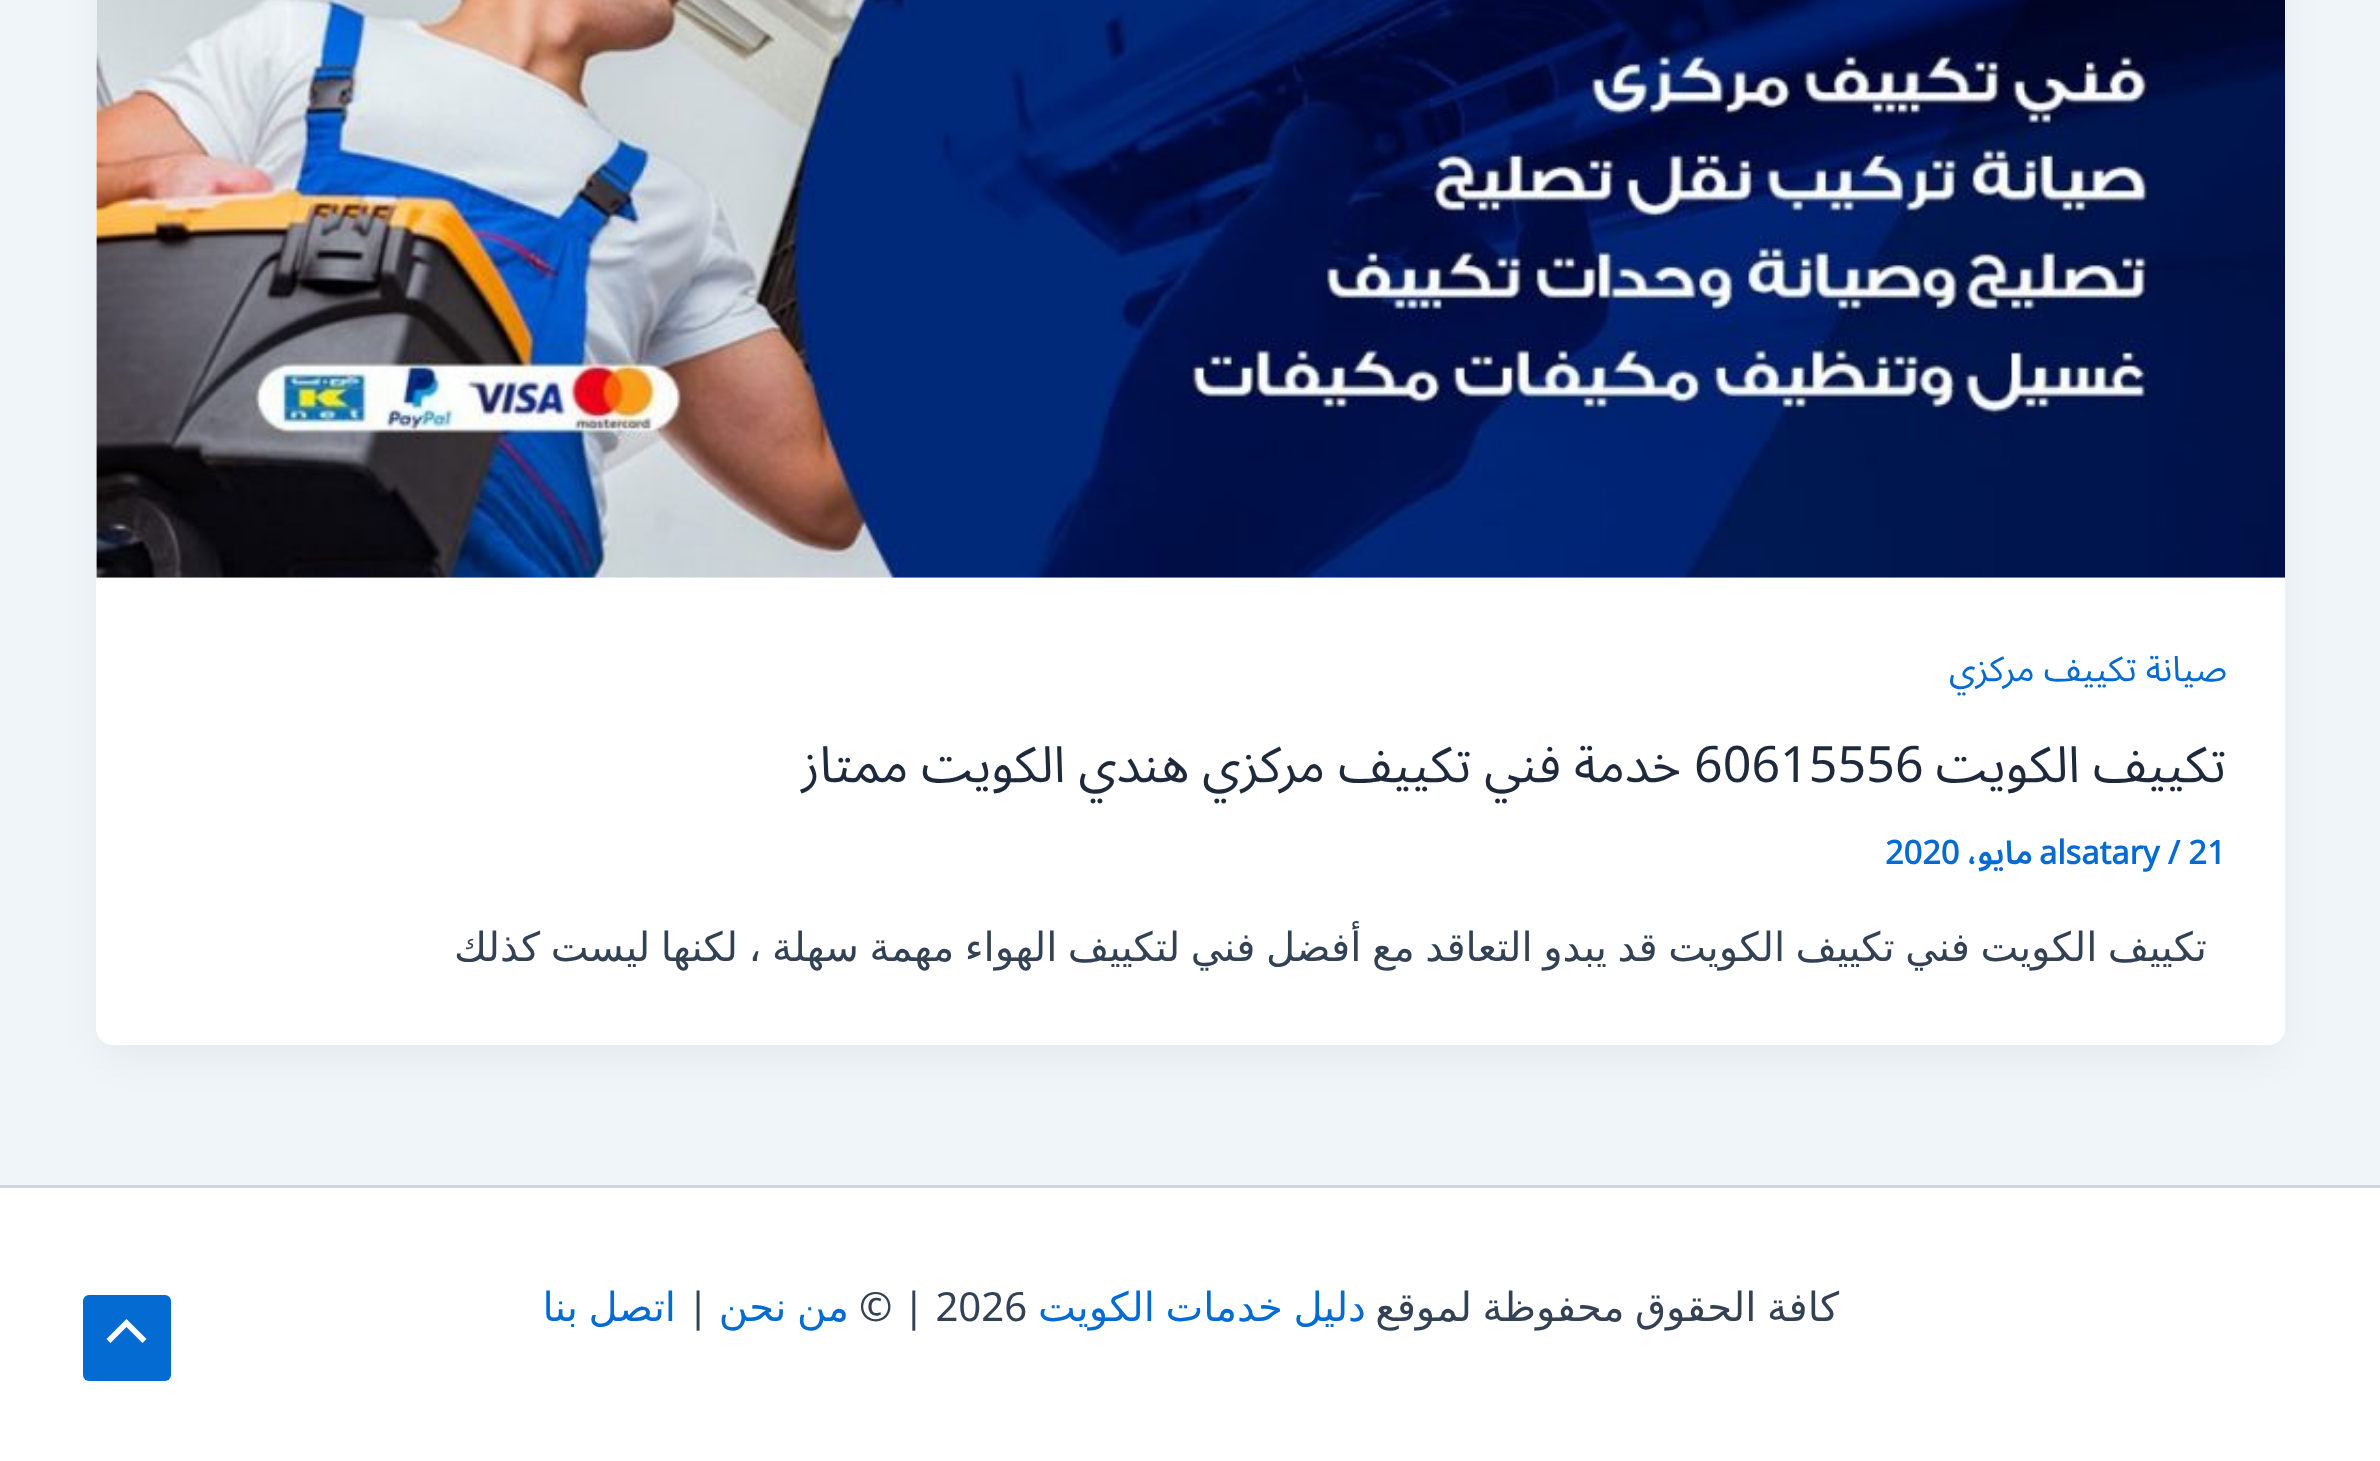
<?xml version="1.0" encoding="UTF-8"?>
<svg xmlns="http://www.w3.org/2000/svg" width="2380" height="1461">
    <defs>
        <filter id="blur1" x="-50%" y="-200%" width="200%" height="500%"><feGaussianBlur stdDeviation="20.5"/></filter>
    </defs>
    <rect width="100%" height="100%" fill="#F0F5FA"/>
    <rect x="102" y="-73" width="2178" height="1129" rx="11" fill="#101828" fill-opacity="0.05" filter="url(#blur1)"/>
    <rect x="96" y="-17" width="2189" height="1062" rx="17" fill="#FFFFFF"/>
    <image x="96" y="0" width="2189" height="578" href="img_01.png"/>
    <text x="2227" y="681" font-family="'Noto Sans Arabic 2'" font-size="35" direction="rtl" fill="#046BD2">صيانة تكييف مركزي</text>
    <text x="2226" y="782" font-family="'Noto Sans Arabic 2'" font-size="50.2" direction="rtl" fill="#1E293B">تكييف الكويت</text>
    <text x="1694" y="782" font-family="'Noto Sans Arabic 2'" font-size="50.2" fill="#1E293B">60615556</text>
    <text x="1681" y="782" font-family="'Noto Sans Arabic 2'" font-size="50.2" direction="rtl" fill="#1E293B">خدمة فني تكييف مركزي هندي الكويت ممتاز</text>
    <text x="2039" y="864" font-family="Noto Sans Arabic" font-size="32.5" font-weight="700" fill="#046BD2">alsatary / 21</text>
    <text x="2033" y="864" font-family="Noto Sans Arabic" font-size="32.5" font-weight="600" direction="rtl" fill="#046BD2">مايو،</text>
    <text x="1885" y="864" font-family="Noto Sans Arabic" font-size="32.5" font-weight="700" fill="#046BD2">2020</text>
    <text x="2207" y="961" word-spacing="-2.25" font-family="DejaVu Sans" font-size="40.15" direction="rtl" fill="#334155">تكييف الكويت فني تكييف الكويت قد يبدو التعاقد مع أفضل فني لتكييف الهواء مهمة سهلة ، لكنها ليست كذلك</text>
    <rect x="0" y="1188" width="2380" height="273" fill="#FFFFFF"/>
    <rect x="0" y="1185" width="2380" height="3" fill="#D1D5DB"/>
    <text x="1839" y="1321" word-spacing="-2.25" font-family="DejaVu Sans" font-size="40.15" direction="rtl" fill="#334155">كافة الحقوق محفوظة لموقع</text>
    <text x="1366" y="1321" word-spacing="-2.25" font-family="DejaVu Sans" font-size="40.15" direction="rtl" fill="#046BD2">دليل خدمات الكويت</text>
    <text x="859" y="1321" font-family="Noto Sans Arabic" font-size="40.15" fill="#334155">© | 2026</text>
    <text x="849" y="1321" word-spacing="-2.25" font-family="DejaVu Sans" font-size="40.15" direction="rtl" fill="#046BD2">من نحن</text>
    <text x="687" y="1321" font-family="Noto Sans Arabic" font-size="40.15" fill="#334155">|</text>
    <text x="676" y="1321" word-spacing="-2.25" font-family="DejaVu Sans" font-size="40.15" direction="rtl" fill="#046BD2">اتصل بنا</text>
    <rect x="83" y="1295" width="88" height="86" rx="6" fill="#046BD2"/>
    <path d="M 146.5 1339 L 126.5 1319 L 106.5 1339 L 110.5 1343 L 126.5 1327 L 142.5 1343 Z" fill="#FFFFFF"/>
</svg>
